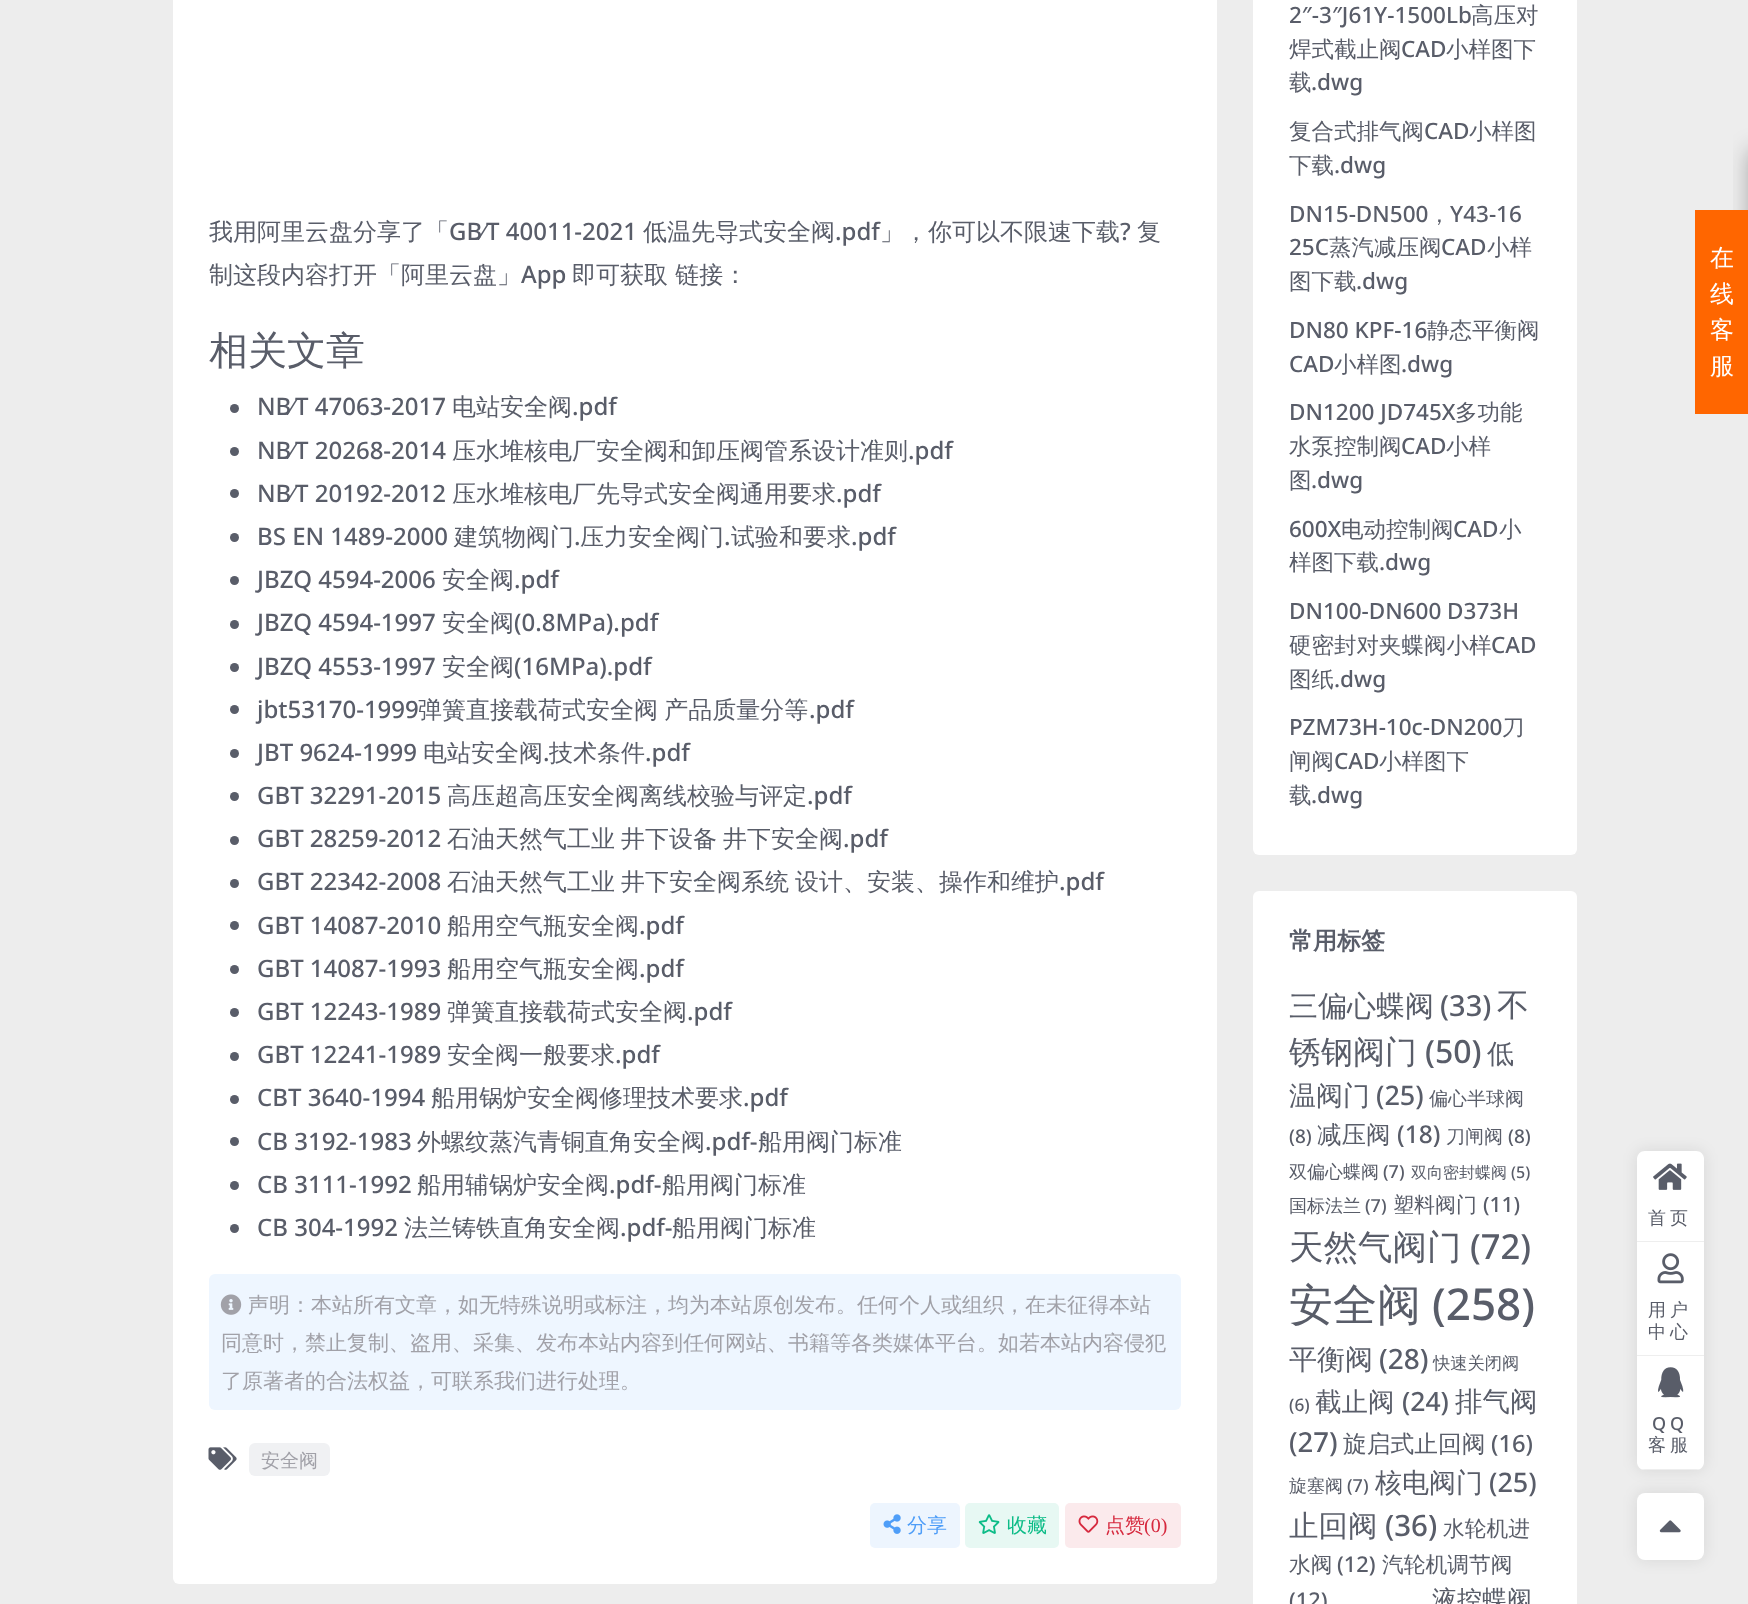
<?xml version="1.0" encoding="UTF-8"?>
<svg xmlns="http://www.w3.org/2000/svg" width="1748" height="1604">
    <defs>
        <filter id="blur1" x="-50%" y="-200%" width="200%" height="500%"><feGaussianBlur stdDeviation="11"/></filter>
        <filter id="blur2" x="-50%" y="-200%" width="200%" height="500%"><feGaussianBlur stdDeviation="7.5"/></filter>
        <clipPath id="clip1"><rect x="1637" y="1151" width="67" height="319" rx="8"/></clipPath>
    </defs>
    <rect width="100%" height="100%" fill="#EDEDED"/>
    <rect x="173" y="-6" width="1044" height="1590" rx="6" fill="#FFFFFF"/>
    <text x="209" y="240" font-family="WenQuanYi Zen Hei" font-size="24" font-weight="500" fill="#595D69">我用阿里云盘分享了「</text>
    <text x="449" y="240" font-family="Noto Sans" font-size="24" font-weight="500" fill="#595D69">GB</text>
    <text x="482" y="240" font-family="Liberation Sans" font-size="24" fill="#595D69">∕</text>
    <text x="486" y="240" font-family="Noto Sans" font-size="24" font-weight="500" fill="#595D69">T 40011-2021</text>
    <text x="643" y="240" font-family="WenQuanYi Zen Hei" font-size="24" font-weight="500" fill="#595D69">低温先导式安全阀</text>
    <text x="835" y="240" font-family="Noto Sans" font-size="24" font-weight="500" fill="#595D69">.pdf</text>
    <text x="880" y="240" font-family="WenQuanYi Zen Hei" font-size="24" font-weight="500" fill="#595D69">」，你可以不限速下载</text>
    <text x="1120" y="240" font-family="Noto Sans" font-size="24" font-weight="500" fill="#595D69">?</text>
    <text x="1137" y="240" font-family="WenQuanYi Zen Hei" font-size="24" font-weight="500" fill="#595D69">复</text>
    <text x="209" y="283" font-family="WenQuanYi Zen Hei" font-size="24" font-weight="500" fill="#595D69">制这段内容打开「阿里云盘」</text>
    <text x="521" y="283" font-family="Noto Sans" font-size="24" font-weight="500" fill="#595D69">App</text>
    <text x="572" y="283" font-family="WenQuanYi Zen Hei" font-size="24" font-weight="500" fill="#595D69">即可获取 链接：</text>
    <text x="209" y="364" font-family="WenQuanYi Zen Hei" font-size="39" font-weight="500" fill="#595D69">相关文章</text>
    <circle cx="234.5" cy="408.5" r="4.5" fill="#595D69"/>
    <text x="257" y="415" font-family="Noto Sans" font-size="24" font-weight="500" fill="#595D69">NB</text>
    <text x="291" y="415" font-family="Liberation Sans" font-size="24" fill="#595D69">∕</text>
    <text x="295" y="415" font-family="Noto Sans" font-size="24" font-weight="500" fill="#595D69">T 47063-2017</text>
    <text x="452" y="415" font-family="WenQuanYi Zen Hei" font-size="24" font-weight="500" fill="#595D69">电站安全阀</text>
    <text x="572" y="415" font-family="Noto Sans" font-size="24" font-weight="500" fill="#595D69">.pdf</text>
    <circle cx="234.5" cy="451.5" r="4.5" fill="#595D69"/>
    <text x="257" y="459" font-family="Noto Sans" font-size="24" font-weight="500" fill="#595D69">NB</text>
    <text x="291" y="459" font-family="Liberation Sans" font-size="24" fill="#595D69">∕</text>
    <text x="295" y="459" font-family="Noto Sans" font-size="24" font-weight="500" fill="#595D69">T 20268-2014</text>
    <text x="452" y="459" font-family="WenQuanYi Zen Hei" font-size="24" font-weight="500" fill="#595D69">压水堆核电厂安全阀和卸压阀管系设计准则</text>
    <text x="908" y="459" font-family="Noto Sans" font-size="24" font-weight="500" fill="#595D69">.pdf</text>
    <circle cx="234.5" cy="493.5" r="4.5" fill="#595D69"/>
    <text x="257" y="502" font-family="Noto Sans" font-size="24" font-weight="500" fill="#595D69">NB</text>
    <text x="291" y="502" font-family="Liberation Sans" font-size="24" fill="#595D69">∕</text>
    <text x="295" y="502" font-family="Noto Sans" font-size="24" font-weight="500" fill="#595D69">T 20192-2012</text>
    <text x="452" y="502" font-family="WenQuanYi Zen Hei" font-size="24" font-weight="500" fill="#595D69">压水堆核电厂先导式安全阀通用要求</text>
    <text x="836" y="502" font-family="Noto Sans" font-size="24" font-weight="500" fill="#595D69">.pdf</text>
    <circle cx="234.5" cy="537.5" r="4.5" fill="#595D69"/>
    <text x="257" y="545" font-family="Noto Sans" font-size="24" font-weight="500" fill="#595D69">BS EN 1489-2000</text>
    <text x="454" y="545" font-family="WenQuanYi Zen Hei" font-size="24" font-weight="500" fill="#595D69">建筑物阀门</text>
    <text x="580" y="545" font-family="WenQuanYi Zen Hei" font-size="24" font-weight="500" fill="#595D69">压力安全阀门</text>
    <text x="731" y="545" font-family="WenQuanYi Zen Hei" font-size="24" font-weight="500" fill="#595D69">试验和要求</text>
    <text x="851" y="545" font-family="Noto Sans" font-size="24" font-weight="500" fill="#595D69">.pdf</text>
    <text x="574" y="545" font-family="Noto Sans" font-size="24" font-weight="500" fill="#595D69">.</text>
    <text x="724" y="545" font-family="Noto Sans" font-size="24" font-weight="500" fill="#595D69">.</text>
    <circle cx="234.5" cy="580.5" r="4.5" fill="#595D69"/>
    <text x="257" y="588" font-family="Noto Sans" font-size="24" font-weight="500" fill="#595D69">JBZQ 4594-2006</text>
    <text x="442" y="588" font-family="WenQuanYi Zen Hei" font-size="24" font-weight="500" fill="#595D69">安全阀</text>
    <text x="514" y="588" font-family="Noto Sans" font-size="24" font-weight="500" fill="#595D69">.pdf</text>
    <circle cx="234.5" cy="624.5" r="4.5" fill="#595D69"/>
    <text x="257" y="631" font-family="Noto Sans" font-size="24" font-weight="500" fill="#595D69">JBZQ 4594-1997</text>
    <text x="442" y="631" font-family="WenQuanYi Zen Hei" font-size="24" font-weight="500" fill="#595D69">安全阀</text>
    <text x="514" y="631" font-family="Noto Sans" font-size="24" font-weight="500" fill="#595D69">(0.8MPa).pdf</text>
    <circle cx="234.5" cy="667.5" r="4.5" fill="#595D69"/>
    <text x="257" y="675" font-family="Noto Sans" font-size="24" font-weight="500" fill="#595D69">JBZQ 4553-1997</text>
    <text x="442" y="675" font-family="WenQuanYi Zen Hei" font-size="24" font-weight="500" fill="#595D69">安全阀</text>
    <text x="514" y="675" font-family="Noto Sans" font-size="24" font-weight="500" fill="#595D69">(16MPa).pdf</text>
    <circle cx="234.5" cy="709.5" r="4.5" fill="#595D69"/>
    <text x="257" y="718" font-family="Noto Sans" font-size="24" font-weight="500" fill="#595D69">jbt53170-1999</text>
    <text x="418" y="718" word-spacing="-1" font-family="WenQuanYi Zen Hei" font-size="24" font-weight="500" fill="#595D69">弹簧直接载荷式安全阀 产品质量分等</text>
    <text x="809" y="718" font-family="Noto Sans" font-size="24" font-weight="500" fill="#595D69">.pdf</text>
    <circle cx="234.5" cy="753.5" r="4.5" fill="#595D69"/>
    <text x="257" y="761" font-family="Noto Sans" font-size="24" font-weight="500" fill="#595D69">JBT 9624-1999</text>
    <text x="423" y="761" font-family="WenQuanYi Zen Hei" font-size="24" font-weight="500" fill="#595D69">电站安全阀</text>
    <text x="549" y="761" font-family="WenQuanYi Zen Hei" font-size="24" font-weight="500" fill="#595D69">技术条件</text>
    <text x="645" y="761" font-family="Noto Sans" font-size="24" font-weight="500" fill="#595D69">.pdf</text>
    <text x="543" y="761" font-family="Noto Sans" font-size="24" font-weight="500" fill="#595D69">.</text>
    <circle cx="234.5" cy="796.5" r="4.5" fill="#595D69"/>
    <text x="257" y="804" font-family="Noto Sans" font-size="24" font-weight="500" fill="#595D69">GBT 32291-2015</text>
    <text x="447" y="804" font-family="WenQuanYi Zen Hei" font-size="24" font-weight="500" fill="#595D69">高压超高压安全阀离线校验与评定</text>
    <text x="807" y="804" font-family="Noto Sans" font-size="24" font-weight="500" fill="#595D69">.pdf</text>
    <circle cx="234.5" cy="840.5" r="4.5" fill="#595D69"/>
    <text x="257" y="847" font-family="Noto Sans" font-size="24" font-weight="500" fill="#595D69">GBT 28259-2012</text>
    <text x="447" y="847" font-family="WenQuanYi Zen Hei" font-size="24" font-weight="500" fill="#595D69">石油天然气工业</text>
    <text x="621" y="847" font-family="WenQuanYi Zen Hei" font-size="24" font-weight="500" fill="#595D69">井下设备</text>
    <text x="723" y="847" font-family="WenQuanYi Zen Hei" font-size="24" font-weight="500" fill="#595D69">井下安全阀</text>
    <text x="843" y="847" font-family="Noto Sans" font-size="24" font-weight="500" fill="#595D69">.pdf</text>
    <circle cx="234.5" cy="883.5" r="4.5" fill="#595D69"/>
    <text x="257" y="890" font-family="Noto Sans" font-size="24" font-weight="500" fill="#595D69">GBT 22342-2008</text>
    <text x="447" y="890" font-family="WenQuanYi Zen Hei" font-size="24" font-weight="500" fill="#595D69">石油天然气工业</text>
    <text x="621" y="890" font-family="WenQuanYi Zen Hei" font-size="24" font-weight="500" fill="#595D69">井下安全阀系统</text>
    <text x="795" y="890" font-family="WenQuanYi Zen Hei" font-size="24" font-weight="500" fill="#595D69">设计、安装、操作和维护</text>
    <text x="1059" y="890" font-family="Noto Sans" font-size="24" font-weight="500" fill="#595D69">.pdf</text>
    <circle cx="234.5" cy="925.5" r="4.5" fill="#595D69"/>
    <text x="257" y="934" font-family="Noto Sans" font-size="24" font-weight="500" fill="#595D69">GBT 14087-2010</text>
    <text x="447" y="934" font-family="WenQuanYi Zen Hei" font-size="24" font-weight="500" fill="#595D69">船用空气瓶安全阀</text>
    <text x="639" y="934" font-family="Noto Sans" font-size="24" font-weight="500" fill="#595D69">.pdf</text>
    <circle cx="234.5" cy="969.5" r="4.5" fill="#595D69"/>
    <text x="257" y="977" font-family="Noto Sans" font-size="24" font-weight="500" fill="#595D69">GBT 14087-1993</text>
    <text x="447" y="977" font-family="WenQuanYi Zen Hei" font-size="24" font-weight="500" fill="#595D69">船用空气瓶安全阀</text>
    <text x="639" y="977" font-family="Noto Sans" font-size="24" font-weight="500" fill="#595D69">.pdf</text>
    <circle cx="234.5" cy="1012.5" r="4.5" fill="#595D69"/>
    <text x="257" y="1020" font-family="Noto Sans" font-size="24" font-weight="500" fill="#595D69">GBT 12243-1989</text>
    <text x="447" y="1020" font-family="WenQuanYi Zen Hei" font-size="24" font-weight="500" fill="#595D69">弹簧直接载荷式安全阀</text>
    <text x="687" y="1020" font-family="Noto Sans" font-size="24" font-weight="500" fill="#595D69">.pdf</text>
    <circle cx="234.5" cy="1056.5" r="4.5" fill="#595D69"/>
    <text x="257" y="1063" font-family="Noto Sans" font-size="24" font-weight="500" fill="#595D69">GBT 12241-1989</text>
    <text x="447" y="1063" font-family="WenQuanYi Zen Hei" font-size="24" font-weight="500" fill="#595D69">安全阀一般要求</text>
    <text x="615" y="1063" font-family="Noto Sans" font-size="24" font-weight="500" fill="#595D69">.pdf</text>
    <circle cx="234.5" cy="1099.5" r="4.5" fill="#595D69"/>
    <text x="257" y="1106" font-family="Noto Sans" font-size="24" font-weight="500" fill="#595D69">CBT 3640-1994</text>
    <text x="431" y="1106" font-family="WenQuanYi Zen Hei" font-size="24" font-weight="500" fill="#595D69">船用锅炉安全阀修理技术要求</text>
    <text x="743" y="1106" font-family="Noto Sans" font-size="24" font-weight="500" fill="#595D69">.pdf</text>
    <circle cx="234.5" cy="1141.5" r="4.5" fill="#595D69"/>
    <text x="257" y="1150" font-family="Noto Sans" font-size="24" font-weight="500" fill="#595D69">CB 3192-1983</text>
    <text x="417" y="1150" font-family="WenQuanYi Zen Hei" font-size="24" font-weight="500" fill="#595D69">外螺纹蒸汽青铜直角安全阀</text>
    <text x="705" y="1150" font-family="Noto Sans" font-size="24" font-weight="500" fill="#595D69">.pdf-</text>
    <text x="758" y="1150" font-family="WenQuanYi Zen Hei" font-size="24" font-weight="500" fill="#595D69">船用阀门标准</text>
    <circle cx="234.5" cy="1185.5" r="4.5" fill="#595D69"/>
    <text x="257" y="1193" font-family="Noto Sans" font-size="24" font-weight="500" fill="#595D69">CB 3111-1992</text>
    <text x="417" y="1193" font-family="WenQuanYi Zen Hei" font-size="24" font-weight="500" fill="#595D69">船用辅锅炉安全阀</text>
    <text x="609" y="1193" font-family="Noto Sans" font-size="24" font-weight="500" fill="#595D69">.pdf-</text>
    <text x="662" y="1193" font-family="WenQuanYi Zen Hei" font-size="24" font-weight="500" fill="#595D69">船用阀门标准</text>
    <circle cx="234.5" cy="1228.5" r="4.5" fill="#595D69"/>
    <text x="257" y="1236" font-family="Noto Sans" font-size="24" font-weight="500" fill="#595D69">CB 304-1992</text>
    <text x="404" y="1236" font-family="WenQuanYi Zen Hei" font-size="24" font-weight="500" fill="#595D69">法兰铸铁直角安全阀</text>
    <text x="620" y="1236" font-family="Noto Sans" font-size="24" font-weight="500" fill="#595D69">.pdf-</text>
    <text x="672" y="1236" font-family="WenQuanYi Zen Hei" font-size="24" font-weight="500" fill="#595D69">船用阀门标准</text>
    <rect x="209" y="1274" width="972" height="136" rx="6" fill="#EEF6FF"/>
    <image x="220" y="1294" width="22" height="21" href="img_01.png"/>
    <text x="248" y="1312" font-family="WenQuanYi Zen Hei" font-size="21" font-weight="500" fill="#A1A1A8">声明：本站所有文章，如无特殊说明或标注，均为本站原创发布。任何个人或组织，在未征得本站</text>
    <text font-family="WenQuanYi Zen Hei" font-size="21" font-weight="500" fill="#A1A1A8">
        <tspan x="221" y="1350">同意时，禁止复制、盗用、采集、发布本站内容到任何网站、书籍等各类媒体平台。如若本站内容侵犯</tspan>
        <tspan x="221" y="1388">了原著者的合法权益，可联系我们进行处理。</tspan>
    </text>
    <image x="208" y="1447" width="29" height="23" href="img_02.png"/>
    <rect x="249" y="1443" width="81" height="33" rx="6" fill="#F0F1F3"/>
    <text x="261" y="1467" font-family="WenQuanYi Zen Hei" font-size="19" font-weight="500" fill="#A1A1A8">安全阀</text>
    <rect x="870" y="1503" width="90" height="45" rx="5" fill="#EDF5FE"/>
    <image x="883" y="1514" width="18" height="20" href="img_03.png"/>
    <text x="907" y="1532" font-family="WenQuanYi Zen Hei" font-size="20" font-weight="500" fill="#4F9EF8">分享</text>
    <rect x="965" y="1503" width="94" height="45" rx="5" fill="#E7F8F3"/>
    <image x="978" y="1514" width="22" height="20" href="img_04.png"/>
    <text x="1007" y="1532" font-family="WenQuanYi Zen Hei" font-size="20" font-weight="500" fill="#0CBC87">收藏</text>
    <rect x="1065" y="1503" width="116" height="45" rx="5" fill="#FBEAEC"/>
    <image x="1078" y="1515" width="21" height="18" href="img_05.png"/>
    <text x="1105" y="1532" font-family="WenQuanYi Zen Hei" font-size="20" font-weight="500" fill="#D6293E">点赞</text>
    <text x="1144" y="1532" font-family="Liberation Serif" font-size="20" fill="#D6293E">(0)</text>
    <rect x="1253" y="-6" width="324" height="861" rx="6" fill="#FFFFFF"/>
    <text x="1289" y="23" font-family="Noto Sans" font-size="22.5" font-weight="500" fill="#595D69">2″-3″J61Y-1500Lb</text>
    <text x="1471" y="23" font-family="WenQuanYi Zen Hei" font-size="22.5" font-weight="500" fill="#595D69">高压对</text>
    <text x="1289" y="57" font-family="WenQuanYi Zen Hei" font-size="22.5" font-weight="500" fill="#595D69">焊式截止阀</text>
    <text x="1401" y="57" font-family="Noto Sans" font-size="22.5" font-weight="500" fill="#595D69">CAD</text>
    <text x="1446" y="57" font-family="WenQuanYi Zen Hei" font-size="22.5" font-weight="500" fill="#595D69">小样图下</text>
    <text x="1289" y="90" font-family="WenQuanYi Zen Hei" font-size="22.5" font-weight="500" fill="#595D69">载</text>
    <text x="1311" y="90" font-family="Noto Sans" font-size="22.5" font-weight="500" fill="#595D69">.dwg</text>
    <text x="1289" y="139" font-family="WenQuanYi Zen Hei" font-size="22.5" font-weight="500" fill="#595D69">复合式排气阀</text>
    <text x="1424" y="139" font-family="Noto Sans" font-size="22.5" font-weight="500" fill="#595D69">CAD</text>
    <text x="1469" y="139" font-family="WenQuanYi Zen Hei" font-size="22.5" font-weight="500" fill="#595D69">小样图</text>
    <text x="1289" y="173" font-family="WenQuanYi Zen Hei" font-size="22.5" font-weight="500" fill="#595D69">下载</text>
    <text x="1334" y="173" font-family="Noto Sans" font-size="22.5" font-weight="500" fill="#595D69">.dwg</text>
    <text x="1289" y="222" font-family="Noto Sans" font-size="22.5" font-weight="500" fill="#595D69">DN15-DN500</text>
    <text x="1428" y="222" font-family="WenQuanYi Zen Hei" font-size="22.5" font-weight="500" fill="#595D69">，</text>
    <text x="1450" y="222" font-family="Noto Sans" font-size="22.5" font-weight="500" fill="#595D69">Y43-16</text>
    <text x="1289" y="255" font-family="Noto Sans" font-size="22.5" font-weight="500" fill="#595D69">25C</text>
    <text x="1329" y="255" font-family="WenQuanYi Zen Hei" font-size="22.5" font-weight="500" fill="#595D69">蒸汽减压阀</text>
    <text x="1441" y="255" font-family="Noto Sans" font-size="22.5" font-weight="500" fill="#595D69">CAD</text>
    <text x="1487" y="255" font-family="WenQuanYi Zen Hei" font-size="22.5" font-weight="500" fill="#595D69">小样</text>
    <text x="1289" y="289" font-family="WenQuanYi Zen Hei" font-size="22.5" font-weight="500" fill="#595D69">图下载</text>
    <text x="1356" y="289" font-family="Noto Sans" font-size="22.5" font-weight="500" fill="#595D69">.dwg</text>
    <text x="1289" y="338" font-family="Noto Sans" font-size="22.5" font-weight="500" fill="#595D69">DN80 KPF-16</text>
    <text x="1427" y="338" font-family="WenQuanYi Zen Hei" font-size="22.5" font-weight="500" fill="#595D69">静态平衡阀</text>
    <text x="1289" y="372" font-family="Noto Sans" font-size="22.5" font-weight="500" fill="#595D69">CAD</text>
    <text x="1334" y="372" font-family="WenQuanYi Zen Hei" font-size="22.5" font-weight="500" fill="#595D69">小样图</text>
    <text x="1401" y="372" font-family="Noto Sans" font-size="22.5" font-weight="500" fill="#595D69">.dwg</text>
    <text x="1289" y="420" font-family="Noto Sans" font-size="22.5" font-weight="500" fill="#595D69">DN1200 JD745X</text>
    <text x="1455" y="420" font-family="WenQuanYi Zen Hei" font-size="22.5" font-weight="500" fill="#595D69">多功能</text>
    <text x="1289" y="454" font-family="WenQuanYi Zen Hei" font-size="22.5" font-weight="500" fill="#595D69">水泵控制阀</text>
    <text x="1401" y="454" font-family="Noto Sans" font-size="22.5" font-weight="500" fill="#595D69">CAD</text>
    <text x="1446" y="454" font-family="WenQuanYi Zen Hei" font-size="22.5" font-weight="500" fill="#595D69">小样</text>
    <text x="1289" y="488" font-family="WenQuanYi Zen Hei" font-size="22.5" font-weight="500" fill="#595D69">图</text>
    <text x="1311" y="488" font-family="Noto Sans" font-size="22.5" font-weight="500" fill="#595D69">.dwg</text>
    <text x="1289" y="537" font-family="Noto Sans" font-size="22.5" font-weight="500" fill="#595D69">600X</text>
    <text x="1341" y="537" font-family="WenQuanYi Zen Hei" font-size="22.5" font-weight="500" fill="#595D69">电动控制阀</text>
    <text x="1453" y="537" font-family="Noto Sans" font-size="22.5" font-weight="500" fill="#595D69">CAD</text>
    <text x="1499" y="537" font-family="WenQuanYi Zen Hei" font-size="22.5" font-weight="500" fill="#595D69">小</text>
    <text x="1289" y="570" font-family="WenQuanYi Zen Hei" font-size="22.5" font-weight="500" fill="#595D69">样图下载</text>
    <text x="1379" y="570" font-family="Noto Sans" font-size="22.5" font-weight="500" fill="#595D69">.dwg</text>
    <text x="1289" y="619" font-family="Noto Sans" font-size="22.5" font-weight="500" fill="#595D69">DN100-DN600 D373H</text>
    <text x="1289" y="653" font-family="WenQuanYi Zen Hei" font-size="22.5" font-weight="500" fill="#595D69">硬密封对夹蝶阀小样</text>
    <text x="1491" y="653" font-family="Noto Sans" font-size="22.5" font-weight="500" fill="#595D69">CAD</text>
    <text x="1289" y="687" font-family="WenQuanYi Zen Hei" font-size="22.5" font-weight="500" fill="#595D69">图纸</text>
    <text x="1334" y="687" font-family="Noto Sans" font-size="22.5" font-weight="500" fill="#595D69">.dwg</text>
    <text x="1289" y="735" font-family="Noto Sans" font-size="22.5" font-weight="500" fill="#595D69">PZM73H-10c-DN200</text>
    <text x="1502" y="735" font-family="WenQuanYi Zen Hei" font-size="22.5" font-weight="500" fill="#595D69">刀</text>
    <text x="1289" y="769" font-family="WenQuanYi Zen Hei" font-size="22.5" font-weight="500" fill="#595D69">闸阀</text>
    <text x="1334" y="769" font-family="Noto Sans" font-size="22.5" font-weight="500" fill="#595D69">CAD</text>
    <text x="1379" y="769" font-family="WenQuanYi Zen Hei" font-size="22.5" font-weight="500" fill="#595D69">小样图下</text>
    <text x="1289" y="803" font-family="WenQuanYi Zen Hei" font-size="22.5" font-weight="500" fill="#595D69">载</text>
    <text x="1311" y="803" font-family="Noto Sans" font-size="22.5" font-weight="500" fill="#595D69">.dwg</text>
    <rect x="1253" y="891" width="324" height="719" rx="6" fill="#FFFFFF"/>
    <text x="1289" y="949" font-family="WenQuanYi Zen Hei" font-size="24" font-weight="700" fill="#595D69">常用标签</text>
    <text x="1289" y="1016" font-family="WenQuanYi Zen Hei" font-size="29" font-weight="500" fill="#595D69">三偏心蝶阀</text>
    <text x="1440" y="1016" font-family="Noto Sans" font-size="29" font-weight="500" fill="#595D69">(33)</text>
    <text x="1497" y="1016" font-family="WenQuanYi Zen Hei" font-size="32" font-weight="500" fill="#595D69">不</text>
    <text x="1289" y="1063" font-family="WenQuanYi Zen Hei" font-size="32" font-weight="500" fill="#595D69">锈钢阀门</text>
    <text x="1425" y="1063" font-family="Noto Sans" font-size="32" font-weight="500" fill="#595D69">(50)</text>
    <text x="1487" y="1063" font-family="WenQuanYi Zen Hei" font-size="27" font-weight="500" fill="#595D69">低</text>
    <text x="1289" y="1105" font-family="WenQuanYi Zen Hei" font-size="27" font-weight="500" fill="#595D69">温阀门</text>
    <text x="1376" y="1105" font-family="Noto Sans" font-size="27" font-weight="500" fill="#595D69">(25)</text>
    <text x="1429" y="1105" font-family="WenQuanYi Zen Hei" font-size="19" font-weight="500" fill="#595D69">偏心半球阀</text>
    <text x="1289" y="1143" font-family="Noto Sans" font-size="19" font-weight="500" fill="#595D69">(8)</text>
    <text x="1317" y="1143" font-family="WenQuanYi Zen Hei" font-size="24.5" font-weight="500" fill="#595D69">减压阀</text>
    <text x="1397" y="1143" font-family="Noto Sans" font-size="24.5" font-weight="500" fill="#595D69">(18)</text>
    <text x="1446" y="1143" font-family="WenQuanYi Zen Hei" font-size="19" font-weight="500" fill="#595D69">刀闸阀</text>
    <text x="1508" y="1143" font-family="Noto Sans" font-size="19" font-weight="500" fill="#595D69">(8)</text>
    <text x="1289" y="1178" font-family="WenQuanYi Zen Hei" font-size="18" font-weight="500" fill="#595D69">双偏心蝶阀</text>
    <text x="1383" y="1178" font-family="Noto Sans" font-size="18" font-weight="500" fill="#595D69">(7)</text>
    <text x="1411" y="1178" font-family="WenQuanYi Zen Hei" font-size="16" font-weight="500" fill="#595D69">双向密封蝶阀</text>
    <text x="1511" y="1178" font-family="Noto Sans" font-size="16" font-weight="500" fill="#595D69">(5)</text>
    <text x="1289" y="1212" font-family="WenQuanYi Zen Hei" font-size="18" font-weight="500" fill="#595D69">国标法兰</text>
    <text x="1365" y="1212" font-family="Noto Sans" font-size="18" font-weight="500" fill="#595D69">(7)</text>
    <text x="1393" y="1212" font-family="WenQuanYi Zen Hei" font-size="21" font-weight="500" fill="#595D69">塑料阀门</text>
    <text x="1483" y="1212" font-family="Noto Sans" font-size="21" font-weight="500" fill="#595D69">(11)</text>
    <text x="1289" y="1259" font-family="WenQuanYi Zen Hei" font-size="34.5" font-weight="500" fill="#595D69">天然气阀门</text>
    <text x="1470" y="1259" font-family="Noto Sans" font-size="34.5" font-weight="500" fill="#595D69">(72)</text>
    <text x="1289" y="1320" font-family="WenQuanYi Zen Hei" font-size="44" font-weight="500" fill="#595D69">安全阀</text>
    <text x="1432" y="1320" font-family="Noto Sans" font-size="44" font-weight="500" fill="#595D69">(258)</text>
    <text x="1289" y="1369" font-family="WenQuanYi Zen Hei" font-size="28" font-weight="500" fill="#595D69">平衡阀</text>
    <text x="1379" y="1369" font-family="Noto Sans" font-size="28" font-weight="500" fill="#595D69">(28)</text>
    <text x="1433" y="1369" font-family="WenQuanYi Zen Hei" font-size="17.25" font-weight="500" fill="#595D69">快速关闭阀</text>
    <text x="1289" y="1411" font-family="Noto Sans" font-size="17.25" font-weight="500" fill="#595D69">(6)</text>
    <text x="1315" y="1411" font-family="WenQuanYi Zen Hei" font-size="26.5" font-weight="500" fill="#595D69">截止阀</text>
    <text x="1402" y="1411" font-family="Noto Sans" font-size="26.5" font-weight="500" fill="#595D69">(24)</text>
    <text x="1455" y="1411" font-family="WenQuanYi Zen Hei" font-size="27.5" font-weight="500" fill="#595D69">排气阀</text>
    <text x="1289" y="1452" font-family="Noto Sans" font-size="27.5" font-weight="500" fill="#595D69">(27)</text>
    <text x="1343" y="1452" font-family="WenQuanYi Zen Hei" font-size="23.75" font-weight="500" fill="#595D69">旋启式止回阀</text>
    <text x="1491" y="1452" font-family="Noto Sans" font-size="23.75" font-weight="500" fill="#595D69">(16)</text>
    <text x="1289" y="1492" font-family="WenQuanYi Zen Hei" font-size="18" font-weight="500" fill="#595D69">旋塞阀</text>
    <text x="1347" y="1492" font-family="Noto Sans" font-size="18" font-weight="500" fill="#595D69">(7)</text>
    <text x="1375" y="1492" font-family="WenQuanYi Zen Hei" font-size="27" font-weight="500" fill="#595D69">核电阀门</text>
    <text x="1489" y="1492" font-family="Noto Sans" font-size="27" font-weight="500" fill="#595D69">(25)</text>
    <text x="1289" y="1536" font-family="WenQuanYi Zen Hei" font-size="29.5" font-weight="500" fill="#595D69">止回阀</text>
    <text x="1385" y="1536" font-family="Noto Sans" font-size="29.5" font-weight="500" fill="#595D69">(36)</text>
    <text x="1443" y="1536" font-family="WenQuanYi Zen Hei" font-size="21.75" font-weight="500" fill="#595D69">水轮机进</text>
    <text x="1289" y="1572" font-family="WenQuanYi Zen Hei" font-size="21.75" font-weight="500" fill="#595D69">水阀</text>
    <text x="1337" y="1572" font-family="Noto Sans" font-size="21.75" font-weight="500" fill="#595D69">(12)</text>
    <text x="1382" y="1572" font-family="WenQuanYi Zen Hei" font-size="21.75" font-weight="500" fill="#595D69">汽轮机调节阀</text>
    <text x="1289" y="1608" font-family="Noto Sans" font-size="21.75" font-weight="500" fill="#595D69">(12)</text>
    <text x="1432" y="1608" font-family="WenQuanYi Zen Hei" font-size="25" font-weight="500" fill="#595D69">液控蝶阀</text>
    <rect x="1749" y="150" width="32" height="183" fill="#000000" fill-opacity="0.3" filter="url(#blur1)"/>
    <rect x="1695" y="210" width="53" height="204" fill="#FF6600"/>
    <text font-family="WenQuanYi Zen Hei" font-size="24" font-weight="500" fill="#FFFFFF">
        <tspan x="1710" y="266">在</tspan>
        <tspan x="1710" y="302">线</tspan>
        <tspan x="1710" y="338">客</tspan>
        <tspan x="1710" y="374">服</tspan>
    </text>
    <rect x="1637" y="1151" width="67" height="319" rx="8" fill="#000000" fill-opacity="0.1" filter="url(#blur2)"/>
    <path d="M 1645 1151 H 1696 C 1700.5 1151 1704 1154.5 1704 1159 V 1242 H 1637 V 1159 C 1637 1154.5 1640.5 1151 1645 1151 Z" fill="#FFFFFF"/>
    <rect x="1637" y="1241" width="67" height="1" fill="#EEEEEE"/>
    <image x="1653" y="1163" width="34" height="27" href="img_06.png"/>
    <text x="1648" y="1224" font-family="WenQuanYi Zen Hei" font-size="18" font-weight="500" letter-spacing="4" fill="#595D69">首页</text>
    <rect x="1637" y="1242" width="67" height="113" fill="#FFFFFF"/>
    <rect x="1637" y="1355" width="67" height="1" fill="#EEEEEE"/>
    <image x="1657" y="1253" width="27" height="31" href="img_07.png"/>
    <text font-family="WenQuanYi Zen Hei" font-size="18" font-weight="500" letter-spacing="4" fill="#595D69">
        <tspan x="1648" y="1316">用户</tspan>
        <tspan x="1648" y="1338">中心</tspan>
    </text>
    <path d="M 1637 1356 H 1704 V 1462 C 1704 1466.5 1700.5 1470 1696 1470 H 1645 C 1640.5 1470 1637 1466.5 1637 1462 Z" fill="#FFFFFF"/>
    <g clip-path="url(#clip1)">
        <rect x="1637" y="1469" width="67" height="1" fill="#EEEEEE"/>
    </g>
    <image x="1658" y="1367" width="26" height="31" href="img_08.png"/>
    <text x="1652" y="1430" font-family="Noto Sans" font-size="18" font-weight="500" letter-spacing="4" fill="#595D69">QQ</text>
    <text x="1648" y="1451" font-family="WenQuanYi Zen Hei" font-size="18" font-weight="500" letter-spacing="4" fill="#595D69">客服</text>
    <rect x="1637" y="1493" width="67" height="67" rx="8" fill="#000000" fill-opacity="0.1" filter="url(#blur2)"/>
    <rect x="1637" y="1493" width="67" height="67" rx="8" fill="#FFFFFF"/>
    <image x="1659" y="1520" width="22" height="13" href="img_09.png"/>
</svg>
